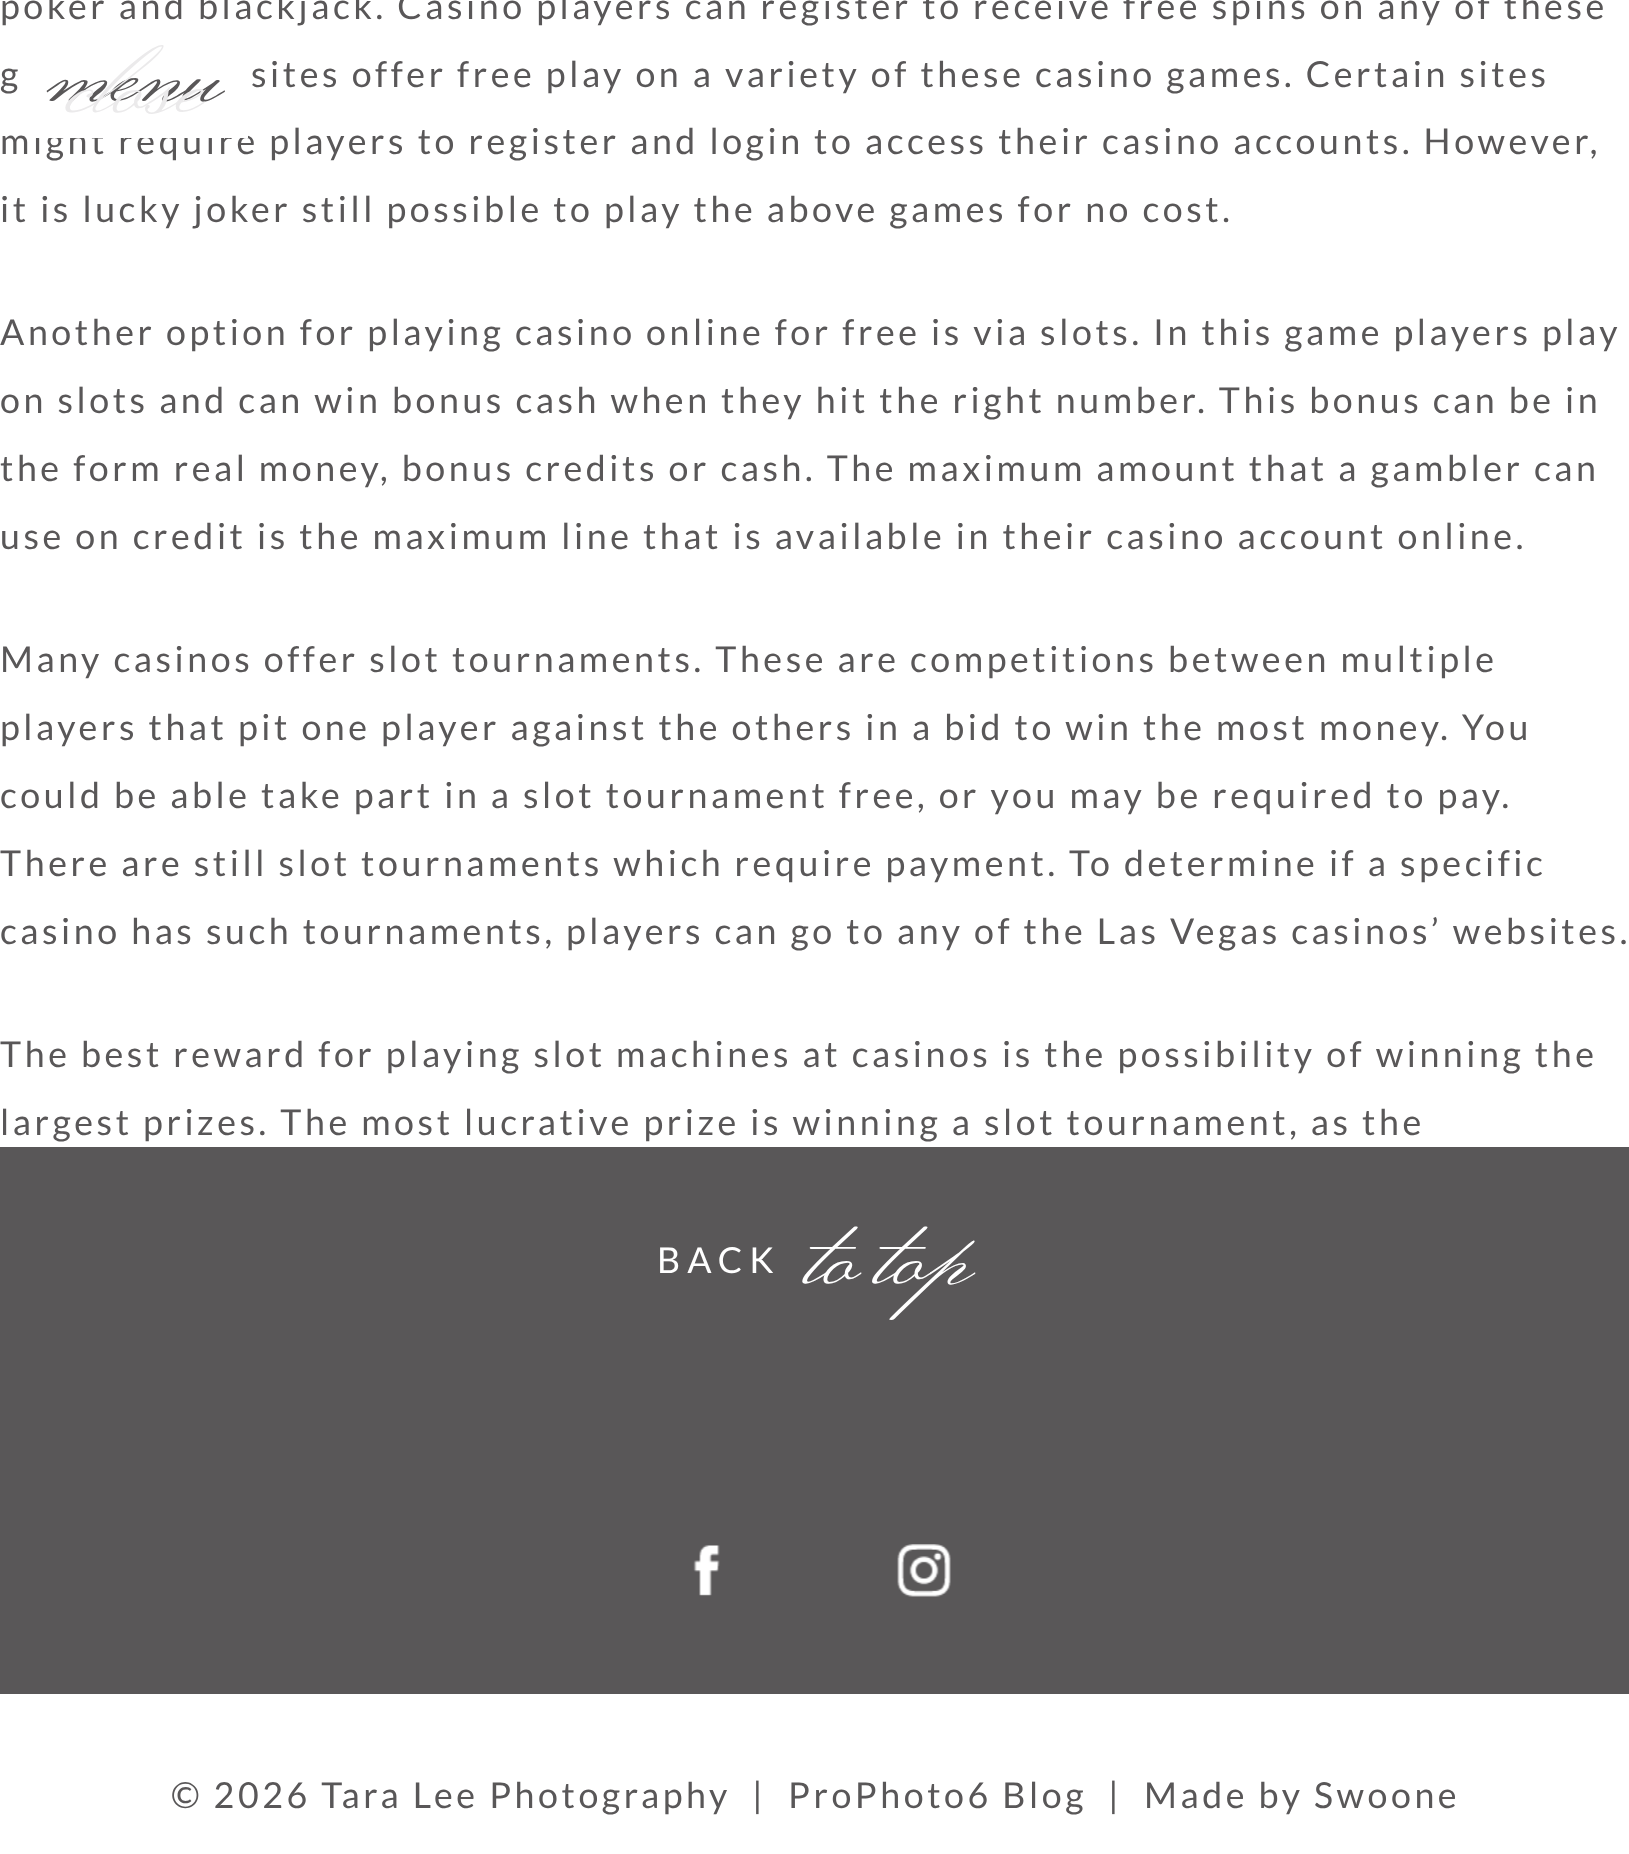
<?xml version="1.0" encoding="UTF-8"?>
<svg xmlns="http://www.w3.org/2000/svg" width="1629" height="1854">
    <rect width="100%" height="100%" fill="#FFFFFF"/>
    <text font-family="Lato" font-size="35.75" letter-spacing="3.58" fill="#595758">
        <tspan x="0" y="19">poker and blackjack. Casino players can register to receive free spins on any of these</tspan>
        <tspan x="0" y="87">g</tspan>
    </text>
    <text x="251" y="87" font-family="Lato" font-size="35.75" letter-spacing="3.58" fill="#595758">sites offer free play on a variety of these casino games. Certain sites</text>
    <text font-family="Lato" font-size="35.75" letter-spacing="3.58" fill="#595758">
        <tspan x="0" y="154">might require players to register and login to access their casino accounts. However,</tspan>
        <tspan x="0" y="222">it is lucky joker still possible to play the above games for no cost.</tspan>
    </text>
    <text font-family="Lato" font-size="35.75" letter-spacing="3.58" fill="#595758">
        <tspan x="0" y="345">Another option for playing casino online for free is via slots. In this game players play</tspan>
        <tspan x="0" y="413">on slots and can win bonus cash when they hit the right number. This bonus can be in</tspan>
        <tspan x="0" y="481">the form real money, bonus credits or cash. The maximum amount that a gambler can</tspan>
        <tspan x="0" y="549">use on credit is the maximum line that is available in their casino account online.</tspan>
    </text>
    <text font-family="Lato" font-size="35.75" letter-spacing="3.58" fill="#595758">
        <tspan x="0" y="672">Many casinos offer slot tournaments. These are competitions between multiple</tspan>
        <tspan x="0" y="740">players that pit one player against the others in a bid to win the most money. You</tspan>
        <tspan x="0" y="808">could be able take part in a slot tournament free, or you may be required to pay.</tspan>
        <tspan x="0" y="876">There are still slot tournaments which require payment. To determine if a specific</tspan>
        <tspan x="0" y="944">casino has such tournaments, players can go to any of the Las Vegas casinos’ websites.</tspan>
    </text>
    <text font-family="Lato" font-size="35.75" letter-spacing="3.58" fill="#595758">
        <tspan x="0" y="1067">The best reward for playing slot machines at casinos is the possibility of winning the</tspan>
        <tspan x="0" y="1135">largest prizes. The most lucrative prize is winning a slot tournament, as the</tspan>
    </text>
    <rect x="0" y="1147" width="1629" height="547" fill="#595758"/>
    <text x="657" y="1273" font-family="Lato" font-size="35.75" letter-spacing="7" fill="#FFFFFF">BACK</text>
    <text x="809" y="1281" font-family="Monsieur La Doulaise" font-size="110" fill="#FFFFFF">to top</text>
    <image x="693" y="1545" width="27" height="51" href="img_01.png"/>
    <image x="897" y="1544" width="54" height="53" href="img_02.png"/>
    <text x="171" y="1808" font-family="Lato" font-size="35.75" letter-spacing="3.58" fill="#595758">© 2026 Tara Lee Photography</text>
    <text x="752" y="1808" font-family="Lato" font-size="35.75" letter-spacing="3.58" fill="#595758">|</text>
    <text x="788" y="1808" font-family="Lato" font-size="35.75" letter-spacing="3.58" fill="#595758">ProPhoto6 Blog</text>
    <text x="1108" y="1808" font-family="Lato" font-size="35.75" letter-spacing="3.58" fill="#595758">|</text>
    <text x="1144" y="1808" font-family="Lato" font-size="35.75" letter-spacing="3.58" fill="#595758">Made by Swoone</text>
    <text x="49" y="99" font-family="Monsieur La Doulaise" font-size="110" fill="#595758">menu</text>
    <text x="70" y="110" font-family="Monsieur La Doulaise" font-size="110" fill="#EBEAEB">close</text>
    <rect x="35" y="127" width="213" height="11" fill="#FFFFFF"/>
</svg>
